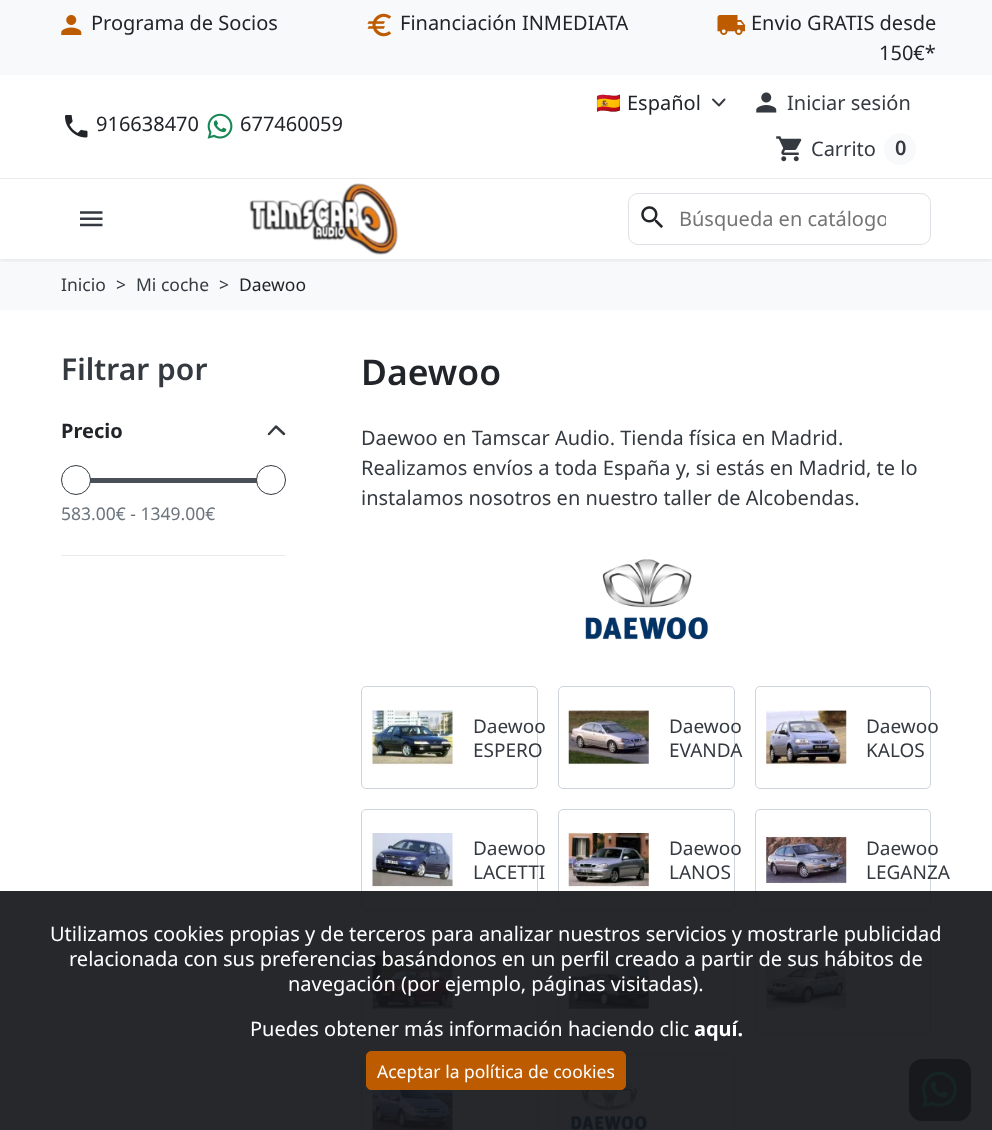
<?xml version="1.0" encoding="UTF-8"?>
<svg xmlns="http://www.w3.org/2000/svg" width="992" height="1130">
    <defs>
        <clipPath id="clip1"><rect x="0" y="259" width="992" height="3"/></clipPath>
        <filter id="blur1" x="-50%" y="-200%" width="200%" height="500%"><feGaussianBlur stdDeviation="2.5"/></filter>
        <clipPath id="clip2"><rect x="679" y="205" width="207" height="28"/></clipPath>
    </defs>
    <rect width="100%" height="100%" fill="#FFFFFF"/>
    <rect x="0" y="0" width="992" height="75" fill="#F8F9FA"/>
    <image x="61" y="15" width="21" height="20" href="img_01.png"/>
    <text x="91" y="30" font-family="Noto Sans" font-size="20" fill="#212529">Programa de Socios</text>
    <image x="367" y="13" width="25" height="24" href="img_02.png"/>
    <text x="400" y="30" font-family="Noto Sans" font-size="20" fill="#212529">Financiación INMEDIATA</text>
    <image x="717" y="15" width="28" height="20" href="img_03.png"/>
    <text x="751" y="30" font-family="Noto Sans" font-size="20" fill="#212529">Envio GRATIS desde</text>
    <text x="879" y="60" font-family="Noto Sans" font-size="20" fill="#212529">150€*</text>
    <rect x="0" y="178" width="992" height="1" fill="#E9ECEF"/>
    <image x="65" y="115" width="23" height="23" href="img_04.png"/>
    <text x="96" y="131" font-family="Noto Sans" font-size="20" fill="#212529">916638470</text>
    <image x="207" y="113" width="26" height="26" href="img_05.png"/>
    <text x="240" y="131" font-family="Noto Sans" font-size="20" fill="#212529">677460059</text>
    <path d="M 713 99.5 L 719 105.5 L 724.5 99.5" fill="none" stroke="#343A40" stroke-width="1.9" stroke-linecap="round" stroke-linejoin="round"/>
    <text x="596" y="110" font-family="Noto Color Emoji" font-size="20" fill="#212529">🇪🇸</text>
    <text x="627" y="110" font-family="Noto Sans" font-size="20" fill="#212529">Español</text>
    <image x="756" y="92" width="21" height="21" href="img_06.png"/>
    <text x="787" y="110" font-family="Noto Sans" font-size="20" fill="#343A40">Iniciar sesión</text>
    <image x="776" y="136" width="26" height="26" href="img_07.png"/>
    <text x="811" y="156" font-family="Noto Sans" font-size="20" fill="#343A40">Carrito</text>
    <circle cx="900" cy="149" r="16" fill="#F8F9FA"/>
    <text x="895" y="155" font-family="Noto Sans" font-size="20" font-weight="600" fill="#343A40">0</text>
    <rect x="0" y="259" width="992" height="51" fill="#F8F9FA"/>
    <g clip-path="url(#clip1)">
        <rect x="0" y="181" width="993" height="80" fill="#000000" fill-opacity="0.07" filter="url(#blur1)"/>
    </g>
    <image x="80" y="211" width="23" height="16" href="img_08.png"/>
    <image x="249" y="183" width="149" height="72" href="img_09.png"/>
    <rect x="628.5" y="193.5" width="302" height="51" rx="9.5" fill="none" stroke="#DEE2E6"/>
    <image x="641" y="206" width="22" height="22" href="img_10.png"/>
    <g clip-path="url(#clip2)">
        <text x="679" y="226" font-family="Noto Sans" font-size="20" fill="#757575">Búsqueda en catálogo</text>
    </g>
    <text x="61" y="291" font-family="Noto Sans" font-size="17.5" fill="#343A40">Inicio</text>
    <text x="116" y="291" font-family="Noto Sans" font-size="17.5" fill="#343A40">&gt;</text>
    <text x="136" y="291" font-family="Noto Sans" font-size="17.5" fill="#343A40">Mi coche</text>
    <text x="219" y="291" font-family="Noto Sans" font-size="17.5" fill="#343A40">&gt;</text>
    <text x="239" y="291" font-family="Noto Sans" font-size="17.5" fill="#212529">Daewoo</text>
    <rect x="61" y="555" width="225" height="1" fill="#E9ECEF"/>
    <text x="61" y="380" font-family="Noto Sans" font-size="30" font-weight="600" fill="#343A40">Filtrar por</text>
    <text x="61" y="438" font-family="Noto Sans" font-size="20" font-weight="700" fill="#212529">Precio</text>
    <path d="M 284 434 L 276 426.5 L 269 434" fill="none" stroke="#363A41" stroke-width="2.5" stroke-linecap="round" stroke-linejoin="round"/>
    <rect x="90" y="478" width="167" height="5" fill="#495057"/>
    <circle cx="76" cy="480" r="14.5" fill="#FFFFFF" stroke="#343A40"/>
    <circle cx="271" cy="480" r="14.5" fill="#FFFFFF" stroke="#343A40"/>
    <text x="61" y="520" font-family="Noto Sans" font-size="17.5" fill="#6C757D">583.00€ - 1349.00€</text>
    <text x="361" y="385" font-family="Noto Sans" font-size="35.5" font-weight="600" fill="#212529">Daewoo</text>
    <text font-family="Noto Sans" font-size="20" fill="#343A40">
        <tspan x="361" y="445">Daewoo en Tamscar Audio. Tienda física en Madrid.</tspan>
        <tspan x="361" y="475">Realizamos envíos a toda España y, si estás en Madrid, te lo</tspan>
        <tspan x="361" y="505">instalamos nosotros en nuestro taller de Alcobendas.</tspan>
    </text>
    <image x="585" y="559" width="124" height="81" href="img_11.png"/>
    <rect x="361.5" y="686.5" width="176" height="102" rx="4.5" fill="none" stroke="#CED4DA"/>
    <image x="372" y="710" width="81" height="56" href="img_12.png"/>
    <text font-family="Noto Sans" font-size="19" fill="#343A40">
        <tspan x="473" y="733">Daewoo</tspan>
        <tspan x="473" y="757">ESPERO</tspan>
    </text>
    <rect x="558.5" y="686.5" width="176" height="102" rx="4.5" fill="none" stroke="#CED4DA"/>
    <image x="568" y="710" width="81" height="56" href="img_13.png"/>
    <text font-family="Noto Sans" font-size="19" fill="#343A40">
        <tspan x="669" y="733">Daewoo</tspan>
        <tspan x="669" y="757">EVANDA</tspan>
    </text>
    <rect x="755.5" y="686.5" width="175" height="102" rx="4.5" fill="none" stroke="#CED4DA"/>
    <image x="766" y="710" width="81" height="56" href="img_14.png"/>
    <text font-family="Noto Sans" font-size="19" fill="#343A40">
        <tspan x="866" y="733">Daewoo</tspan>
        <tspan x="866" y="757">KALOS</tspan>
    </text>
    <rect x="361.5" y="809.5" width="176" height="101" rx="4.5" fill="none" stroke="#CED4DA"/>
    <image x="372" y="833" width="81" height="56" href="img_15.png"/>
    <text font-family="Noto Sans" font-size="19" fill="#343A40">
        <tspan x="473" y="855">Daewoo</tspan>
        <tspan x="473" y="879">LACETTI</tspan>
    </text>
    <rect x="558.5" y="809.5" width="176" height="101" rx="4.5" fill="none" stroke="#CED4DA"/>
    <image x="568" y="832" width="81" height="58" href="img_16.png"/>
    <text font-family="Noto Sans" font-size="19" fill="#343A40">
        <tspan x="669" y="855">Daewoo</tspan>
        <tspan x="669" y="879">LANOS</tspan>
    </text>
    <rect x="755.5" y="809.5" width="175" height="101" rx="4.5" fill="none" stroke="#CED4DA"/>
    <image x="766" y="834" width="81" height="50" href="img_17.png"/>
    <text font-family="Noto Sans" font-size="19" fill="#343A40">
        <tspan x="866" y="855">Daewoo</tspan>
        <tspan x="866" y="879">LEGANZA</tspan>
    </text>
    <rect x="361.5" y="931.5" width="176" height="102" rx="4.5" fill="none" stroke="#CED4DA"/>
    <image x="372" y="955" width="81" height="56" href="img_18.png"/>
    <rect x="558.5" y="931.5" width="176" height="102" rx="4.5" fill="none" stroke="#CED4DA"/>
    <image x="568" y="955" width="81" height="56" href="img_19.png"/>
    <rect x="755.5" y="931.5" width="175" height="102" rx="4.5" fill="none" stroke="#CED4DA"/>
    <image x="766" y="955" width="81" height="54" href="img_20.png"/>
    <rect x="361.5" y="1054.5" width="176" height="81" rx="4.5" fill="none" stroke="#CED4DA"/>
    <image x="372" y="1090" width="81" height="40" href="img_21.png"/>
    <rect x="558.5" y="1054.5" width="176" height="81" rx="4.5" fill="none" stroke="#CED4DA"/>
    <image x="571" y="1084" width="76" height="46" href="img_22.png"/>
    <rect x="909" y="1059" width="62" height="62" rx="13" fill="#353535"/>
    <image x="921" y="1071" width="36" height="36" href="img_23.png"/>
    <rect x="0" y="891" width="992" height="239" fill="#16181C" fill-opacity="0.93"/>
    <text x="50" y="941" font-family="Noto Sans" font-size="20" fill="#FFFFFF">Utilizamos cookies propias y de terceros para analizar nuestros servicios y mostrarle publicidad</text>
    <text x="69" y="966" font-family="Noto Sans" font-size="20" fill="#FFFFFF">relacionada con sus preferencias basándonos en un perfil creado a partir de sus hábitos de</text>
    <text x="288" y="991" font-family="Noto Sans" font-size="20" fill="#FFFFFF">navegación (por ejemplo, páginas visitadas).</text>
    <text x="250" y="1036" font-family="Noto Sans" font-size="20" fill="#FFFFFF">Puedes obtener más información haciendo clic</text>
    <text x="694" y="1036" font-family="Noto Sans" font-size="20" font-weight="700" fill="#FFFFFF">aquí.</text>
    <rect x="366.5" y="1051.5" width="259" height="38" rx="4.5" fill="#BD5B00" stroke="#BD5B00"/>
    <text x="377" y="1078" font-family="Noto Sans" font-size="17.5" fill="#FFFFFF">Aceptar la política de cookies</text>
</svg>
